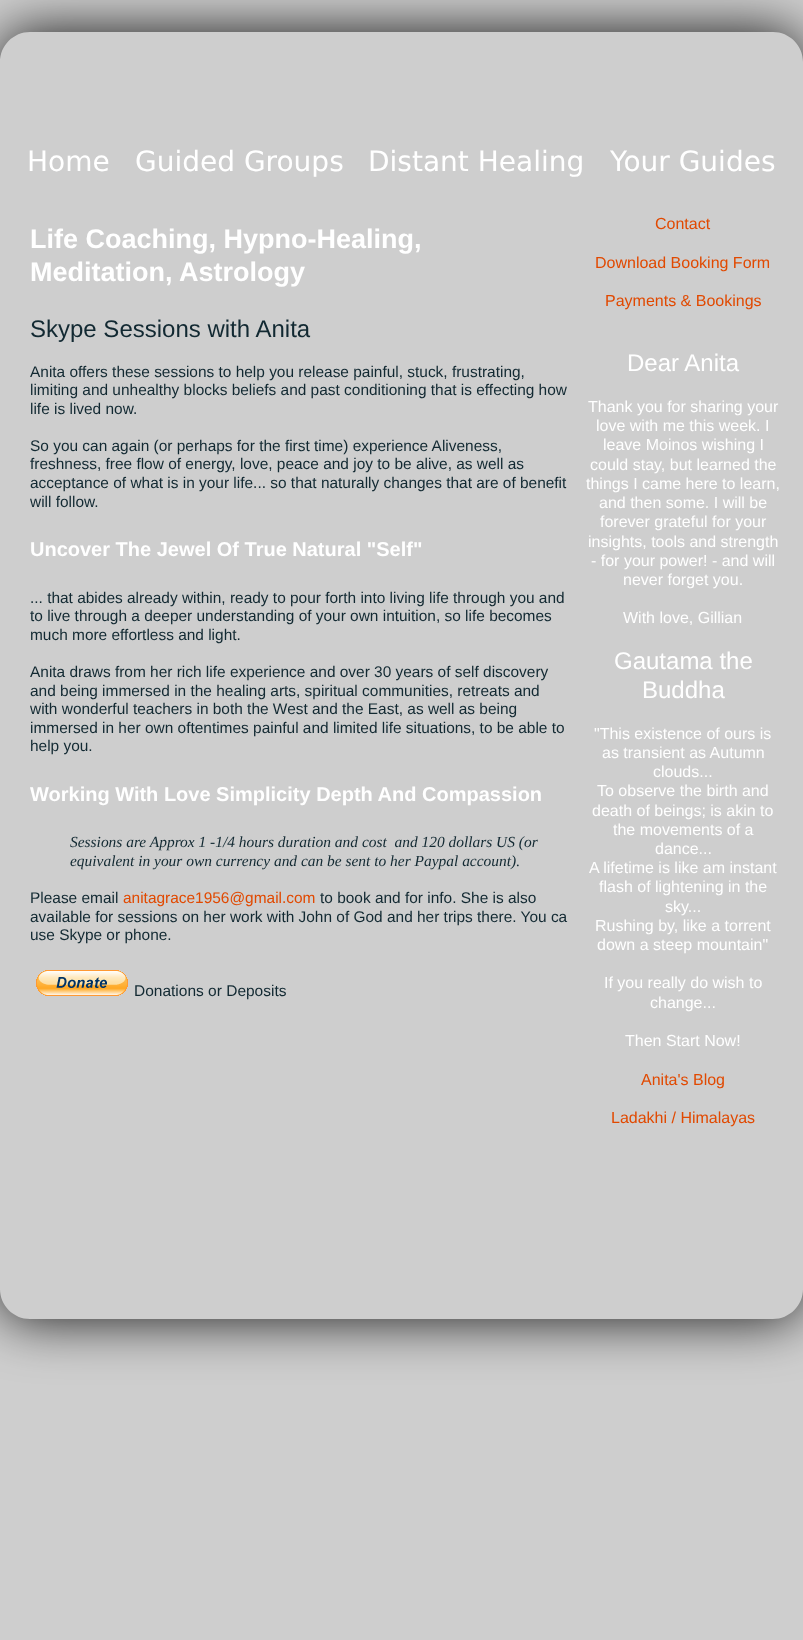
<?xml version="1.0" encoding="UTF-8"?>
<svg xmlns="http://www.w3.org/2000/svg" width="803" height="1640">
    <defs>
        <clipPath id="clip1"><path d="M 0 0 H 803 V 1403 H 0 Z M 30 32 H 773 C 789.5 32 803 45.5 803 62 V 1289 C 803 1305.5 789.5 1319 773 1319 H 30 C 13.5 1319 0 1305.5 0 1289 V 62 C 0 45.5 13.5 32 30 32 Z" clip-rule="evenodd"/></clipPath>
        <filter id="blur1" x="-50%" y="-200%" width="200%" height="500%"><feGaussianBlur stdDeviation="27.5"/></filter>
    </defs>
    <rect width="100%" height="100%" fill="#CECECE"/>
    <g clip-path="url(#clip1)">
        <rect x="0" y="32" width="803" height="1287" rx="30" fill="#000000" fill-opacity="0.9" filter="url(#blur1)"/>
    </g>
    <text x="27" y="171" font-family="DejaVu Sans" font-size="28" fill="#FFFFFF">Home</text>
    <text x="135" y="171" font-family="DejaVu Sans" font-size="28" fill="#FFFFFF">Guided Groups</text>
    <text x="368" y="171" font-family="DejaVu Sans" font-size="28" fill="#FFFFFF">Distant Healing</text>
    <text x="610" y="171" font-family="DejaVu Sans" font-size="28" fill="#FFFFFF">Your Guides</text>
    <text font-family="Liberation Sans" font-size="27" font-weight="700" fill="#FFFFFF">
        <tspan x="30" y="248">Life Coaching, Hypno-Healing,</tspan>
        <tspan x="30" y="281">Meditation, Astrology</tspan>
    </text>
    <text x="30" y="337" font-family="Liberation Sans" font-size="24" fill="#122932">Skype Sessions with Anita</text>
    <text font-family="Liberation Sans" font-size="15.45" fill="#122932">
        <tspan x="30" y="377">Anita offers these sessions to help you release painful, stuck, frustrating,</tspan>
        <tspan x="30" y="395">limiting and unhealthy blocks beliefs and past conditioning that is effecting how</tspan>
        <tspan x="30" y="414">life is lived now.</tspan>
    </text>
    <text font-family="Liberation Sans" font-size="15.45" fill="#122932">
        <tspan x="30" y="451">So you can again (or perhaps for the first time) experience Aliveness,</tspan>
        <tspan x="30" y="469">freshness, free flow of energy, love, peace and joy to be alive, as well as</tspan>
        <tspan x="30" y="488">acceptance of what is in your life... so that naturally changes that are of benefit</tspan>
        <tspan x="30" y="507">will follow.</tspan>
    </text>
    <text x="30" y="556" font-family="Liberation Sans" font-size="20" font-weight="700" fill="#FFFFFF">Uncover The Jewel Of True Natural "Self"</text>
    <text font-family="Liberation Sans" font-size="15.45" fill="#122932">
        <tspan x="30" y="603">... that abides already within, ready to pour forth into living life through you and</tspan>
        <tspan x="30" y="621">to live through a deeper understanding of your own intuition, so life becomes</tspan>
        <tspan x="30" y="640">much more effortless and light.</tspan>
    </text>
    <text font-family="Liberation Sans" font-size="15.45" fill="#122932">
        <tspan x="30" y="677">Anita draws from her rich life experience and over 30 years of self discovery</tspan>
        <tspan x="30" y="696">and being immersed in the healing arts, spiritual communities, retreats and</tspan>
        <tspan x="30" y="714">with wonderful teachers in both the West and the East, as well as being</tspan>
        <tspan x="30" y="733">immersed in her own oftentimes painful and limited life situations, to be able to</tspan>
        <tspan x="30" y="751">help you.</tspan>
    </text>
    <text x="30" y="801" font-family="Liberation Sans" font-size="20" font-weight="700" fill="#FFFFFF">Working With Love Simplicity Depth And Compassion</text>
    <text font-family="Liberation Serif" font-size="15.45" font-style="italic" fill="#122932" xml:space="preserve"><tspan x="70" y="847">Sessions are Approx 1 -1/4 hours duration and cost  and 120 dollars US (or</tspan><tspan x="70" y="866">equivalent in your own currency and can be sent to her Paypal account).</tspan></text>
    <text x="30" y="903" font-family="Liberation Sans" font-size="15.45" fill="#122932">Please email</text>
    <text x="123" y="903" font-family="Liberation Sans" font-size="15.45" fill="#E14900">anitagrace1956@gmail.com</text>
    <text x="320" y="903" font-family="Liberation Sans" font-size="15.45" fill="#122932">to book and for info. She is also</text>
    <text font-family="Liberation Sans" font-size="15.45" fill="#122932">
        <tspan x="30" y="922">available for sessions on her work with John of God and her trips there. You ca</tspan>
        <tspan x="30" y="940">use Skype or phone.</tspan>
    </text>
    <image x="36" y="970" width="92" height="26" href="img_01.png"/>
    <text x="134" y="996" font-family="Liberation Sans" font-size="15.5" fill="#122932">Donations or Deposits</text>
    <text x="655" y="229" font-family="Liberation Sans" font-size="16" fill="#E14900">Contact</text>
    <text x="595" y="268" font-family="Liberation Sans" font-size="16" fill="#E14900">Download Booking Form</text>
    <text x="605" y="306" font-family="Liberation Sans" font-size="16" fill="#E14900">Payments &amp; Bookings</text>
    <text x="627" y="371" font-family="Liberation Sans" font-size="24" fill="#FFFFFF">Dear Anita</text>
    <text x="588" y="412" font-family="Liberation Sans" font-size="16" fill="#FFFFFF">Thank you for sharing your</text>
    <text x="596" y="431" font-family="Liberation Sans" font-size="16" fill="#FFFFFF">love with me this week. I</text>
    <text x="603" y="450" font-family="Liberation Sans" font-size="16" fill="#FFFFFF">leave Moinos wishing I</text>
    <text x="590" y="470" font-family="Liberation Sans" font-size="16" fill="#FFFFFF">could stay, but learned the</text>
    <text x="586" y="489" font-family="Liberation Sans" font-size="16" fill="#FFFFFF">things I came here to learn,</text>
    <text x="599" y="508" font-family="Liberation Sans" font-size="16" fill="#FFFFFF">and then some. I will be</text>
    <text x="600" y="527" font-family="Liberation Sans" font-size="16" fill="#FFFFFF">forever grateful for your</text>
    <text x="588" y="547" font-family="Liberation Sans" font-size="16" fill="#FFFFFF">insights, tools and strength</text>
    <text x="591" y="566" font-family="Liberation Sans" font-size="16" fill="#FFFFFF">- for your power! - and will</text>
    <text x="623" y="585" font-family="Liberation Sans" font-size="16" fill="#FFFFFF">never forget you.</text>
    <text x="623" y="623" font-family="Liberation Sans" font-size="16" fill="#FFFFFF">With love, Gillian</text>
    <text x="614" y="669" font-family="Liberation Sans" font-size="24" fill="#FFFFFF">Gautama the</text>
    <text x="642" y="698" font-family="Liberation Sans" font-size="24" fill="#FFFFFF">Buddha</text>
    <text x="594" y="739" font-family="Liberation Sans" font-size="16" fill="#FFFFFF">"This existence of ours is</text>
    <text x="602" y="758" font-family="Liberation Sans" font-size="16" fill="#FFFFFF">as transient as Autumn</text>
    <text x="653" y="777" font-family="Liberation Sans" font-size="16" fill="#FFFFFF">clouds...</text>
    <text x="597" y="796" font-family="Liberation Sans" font-size="16" fill="#FFFFFF">To observe the birth and</text>
    <text x="592" y="816" font-family="Liberation Sans" font-size="16" fill="#FFFFFF">death of beings; is akin to</text>
    <text x="613" y="835" font-family="Liberation Sans" font-size="16" fill="#FFFFFF">the movements of a</text>
    <text x="655" y="854" font-family="Liberation Sans" font-size="16" fill="#FFFFFF">dance...</text>
    <text x="589" y="873" font-family="Liberation Sans" font-size="16" fill="#FFFFFF">A lifetime is like am instant</text>
    <text x="599" y="892" font-family="Liberation Sans" font-size="16" fill="#FFFFFF">flash of lightening in the</text>
    <text x="665" y="912" font-family="Liberation Sans" font-size="16" fill="#FFFFFF">sky...</text>
    <text x="595" y="931" font-family="Liberation Sans" font-size="16" fill="#FFFFFF">Rushing by, like a torrent</text>
    <text x="597" y="950" font-family="Liberation Sans" font-size="16" fill="#FFFFFF">down a steep mountain"</text>
    <text x="604" y="988" font-family="Liberation Sans" font-size="16" fill="#FFFFFF">If you really do wish to</text>
    <text x="650" y="1008" font-family="Liberation Sans" font-size="16" fill="#FFFFFF">change...</text>
    <text x="625" y="1046" font-family="Liberation Sans" font-size="16" fill="#FFFFFF">Then Start Now!</text>
    <text x="641" y="1085" font-family="Liberation Sans" font-size="16" fill="#E14900">Anita's Blog</text>
    <text x="611" y="1123" font-family="Liberation Sans" font-size="16" fill="#E14900">Ladakhi / Himalayas</text>
</svg>
